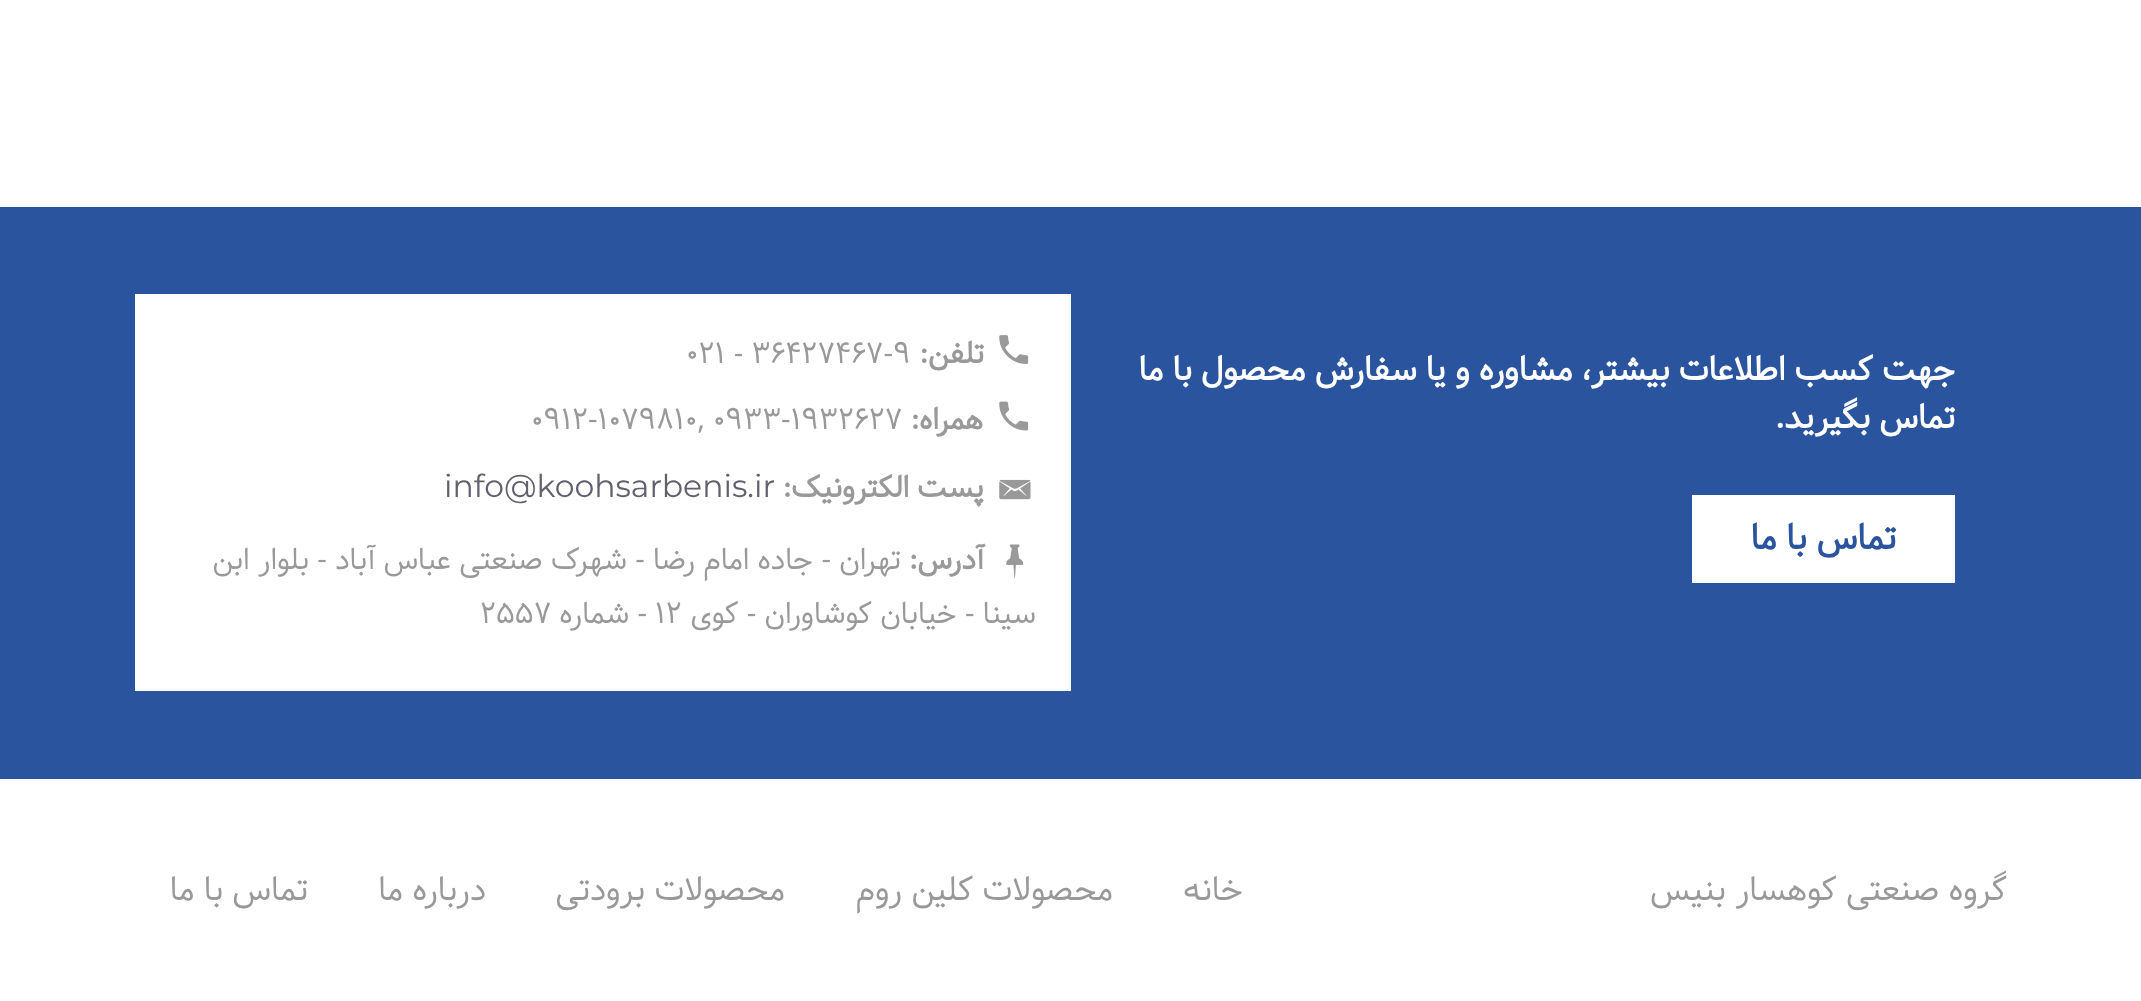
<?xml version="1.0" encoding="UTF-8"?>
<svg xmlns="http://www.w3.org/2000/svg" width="2141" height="1001">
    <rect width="100%" height="100%" fill="#FFFFFF"/>
    <rect x="0" y="207" width="2141" height="572" fill="#2A549E"/>
    <text font-family="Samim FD" font-size="33.25" font-weight="700" direction="rtl" fill="#FFFFFF">
        <tspan x="1955" y="380">جهت کسب اطلاعات بیشتر، مشاوره و یا سفارش محصول با ما</tspan>
        <tspan x="1955" y="428">تماس بگیرید.</tspan>
    </text>
    <rect x="1692" y="495" width="263" height="88" fill="#FFFFFF"/>
    <text x="1896" y="549" font-family="Samim FD" font-size="35" font-weight="700" direction="rtl" fill="#2A549E">تماس با ما</text>
    <rect x="135" y="294" width="936" height="397" fill="#FFFFFF"/>
    <image x="999" y="335" width="30" height="29" href="img_01.png"/>
    <text x="984" y="363" font-family="Samim FD" font-size="29.75" font-weight="700" direction="rtl" fill="#999999">تلفن:</text>
    <text x="686" y="363" font-family="Samim FD" font-size="29.75" fill="#999999">021 - 36427467-9</text>
    <image x="999" y="401" width="30" height="30" href="img_02.png"/>
    <text x="983" y="429" font-family="Samim FD" font-size="29.75" font-weight="700" direction="rtl" fill="#999999">همراه:</text>
    <text x="531" y="429" font-family="Samim FD" font-size="29.75" fill="#999999">0912-1079810, 0933-1932627</text>
    <image x="999" y="479" width="32" height="21" href="img_03.png"/>
    <text x="984" y="497" font-family="Samim FD" font-size="29.75" font-weight="700" direction="rtl" fill="#999999">پست الکترونیک:</text>
    <text x="444" y="497" font-family="Montserrat" font-size="31.5" fill="#60606E">info@koohsarbenis.ir</text>
    <image x="1006" y="544" width="18" height="35" href="img_04.png"/>
    <text x="984" y="569" font-family="Samim FD" font-size="29.75" font-weight="700" direction="rtl" fill="#999999">آدرس:</text>
    <text x="901" y="569" font-family="Samim FD" font-size="29.75" direction="rtl" fill="#999999">تهران - جاده امام رضا - شهرک صنعتی عباس آباد - بلوار ابن</text>
    <text x="1036" y="623" font-family="Samim FD" font-size="29.75" direction="rtl" fill="#999999">سینا - خیابان کوشاوران - کوی</text>
    <text x="655" y="623" font-family="Samim FD" font-size="29.75" fill="#999999">12</text>
    <text x="647" y="623" font-family="Samim FD" font-size="29.75" direction="rtl" fill="#999999">- شماره</text>
    <text x="480" y="623" font-family="Samim FD" font-size="29.75" fill="#999999">2557</text>
    <text x="2007" y="900" font-family="Samim FD" font-size="33.25" direction="rtl" fill="#999999">گروه صنعتی کوهسار بنیس</text>
    <text x="1243" y="900" font-family="Samim FD" font-size="33.25" direction="rtl" fill="#999999">خانه</text>
    <text x="1113" y="900" font-family="Samim FD" font-size="33.25" direction="rtl" fill="#999999">محصولات کلین روم</text>
    <text x="785" y="900" font-family="Samim FD" font-size="33.25" direction="rtl" fill="#999999">محصولات برودتی</text>
    <text x="486" y="900" font-family="Samim FD" font-size="33.25" direction="rtl" fill="#999999">درباره ما</text>
    <text x="308" y="900" font-family="Samim FD" font-size="33.25" direction="rtl" fill="#999999">تماس با ما</text>
</svg>
